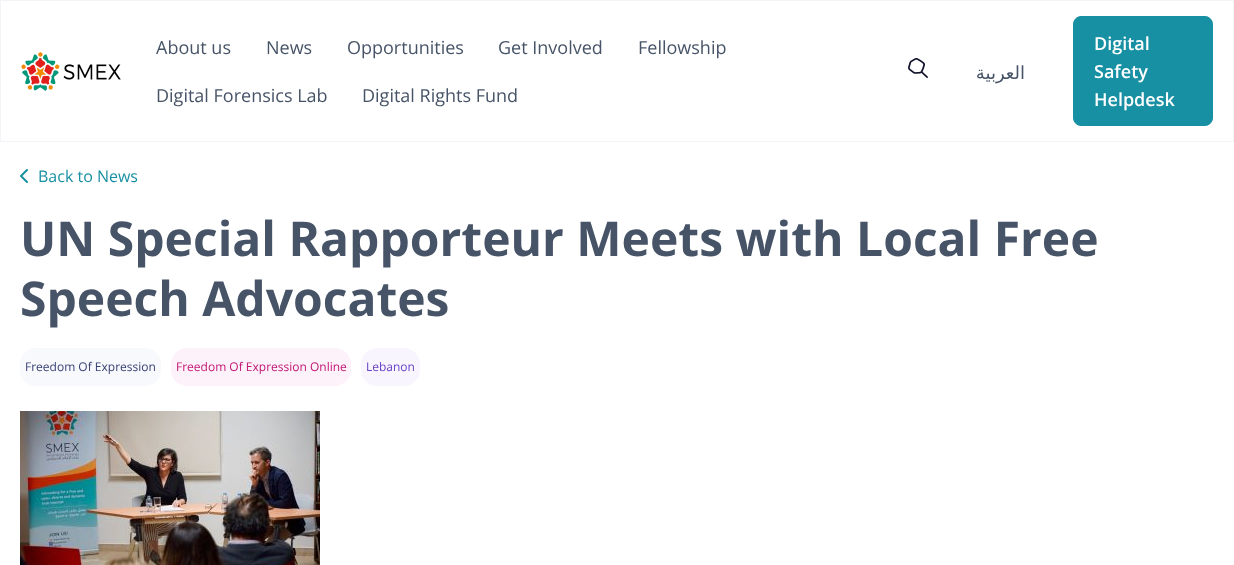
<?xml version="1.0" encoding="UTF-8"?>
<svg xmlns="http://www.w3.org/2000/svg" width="1234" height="565">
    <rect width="100%" height="100%" fill="#FFFFFF"/>
    <rect x="0.5" y="0.5" width="1233" height="141" fill="none" stroke="#F2F4F7"/>
    <image x="21" y="52" width="100" height="39" href="img_01.png"/>
    <text x="156" y="54" font-family="Open Sans" font-size="18" fill="#475467">About us</text>
    <text x="266" y="54" font-family="Open Sans" font-size="18" fill="#475467">News</text>
    <text x="347" y="54" font-family="Open Sans" font-size="18" fill="#475467">Opportunities</text>
    <text x="498" y="54" font-family="Open Sans" font-size="18" fill="#475467">Get Involved</text>
    <text x="638" y="54" font-family="Open Sans" font-size="18" fill="#475467">Fellowship</text>
    <text x="156" y="102" font-family="Open Sans" font-size="18" fill="#475467">Digital Forensics Lab</text>
    <text x="362" y="102" font-family="Open Sans" font-size="18" fill="#475467">Digital Rights Fund</text>
    <image x="908" y="58" width="20" height="20" href="img_02.png"/>
    <text x="1025" y="79" font-family="DejaVu Sans" font-size="18" direction="rtl" fill="#475467">العربية</text>
    <rect x="1073.5" y="16.5" width="139" height="109" rx="7.5" fill="#1890A3" stroke="#1890A3"/>
    <text font-family="Open Sans" font-size="18" font-weight="600" fill="#FFFFFF">
        <tspan x="1094" y="50">Digital</tspan>
        <tspan x="1094" y="78">Safety</tspan>
        <tspan x="1094" y="106">Helpdesk</tspan>
    </text>
    <path d="M 27 182 L 21 176 L 27 170" fill="none" stroke="#1890A3" stroke-width="2" stroke-linecap="round" stroke-linejoin="round"/>
    <text x="38" y="182" font-family="Open Sans" font-size="16" fill="#1890A3">Back to News</text>
    <text font-family="Open Sans" font-size="48" font-weight="700" fill="#475467">
        <tspan x="20" y="256">UN Special Rapporteur Meets with Local Free</tspan>
        <tspan x="20" y="316">Speech Advocates</tspan>
    </text>
    <rect x="20" y="348" width="141" height="38" rx="16" fill="#F8F9FC"/>
    <text x="25" y="371" font-family="Open Sans" font-size="12" fill="#363F72">Freedom Of Expression</text>
    <rect x="171" y="348" width="180" height="38" rx="16" fill="#FDF2FA"/>
    <text x="176" y="371" font-family="Open Sans" font-size="12" fill="#C11574">Freedom Of Expression Online</text>
    <rect x="361" y="348" width="59" height="38" rx="16" fill="#F9F5FF"/>
    <text x="366" y="371" font-family="Open Sans" font-size="12" fill="#6941C6">Lebanon</text>
    <image x="20" y="411" width="300" height="154" href="img_03.png"/>
</svg>
